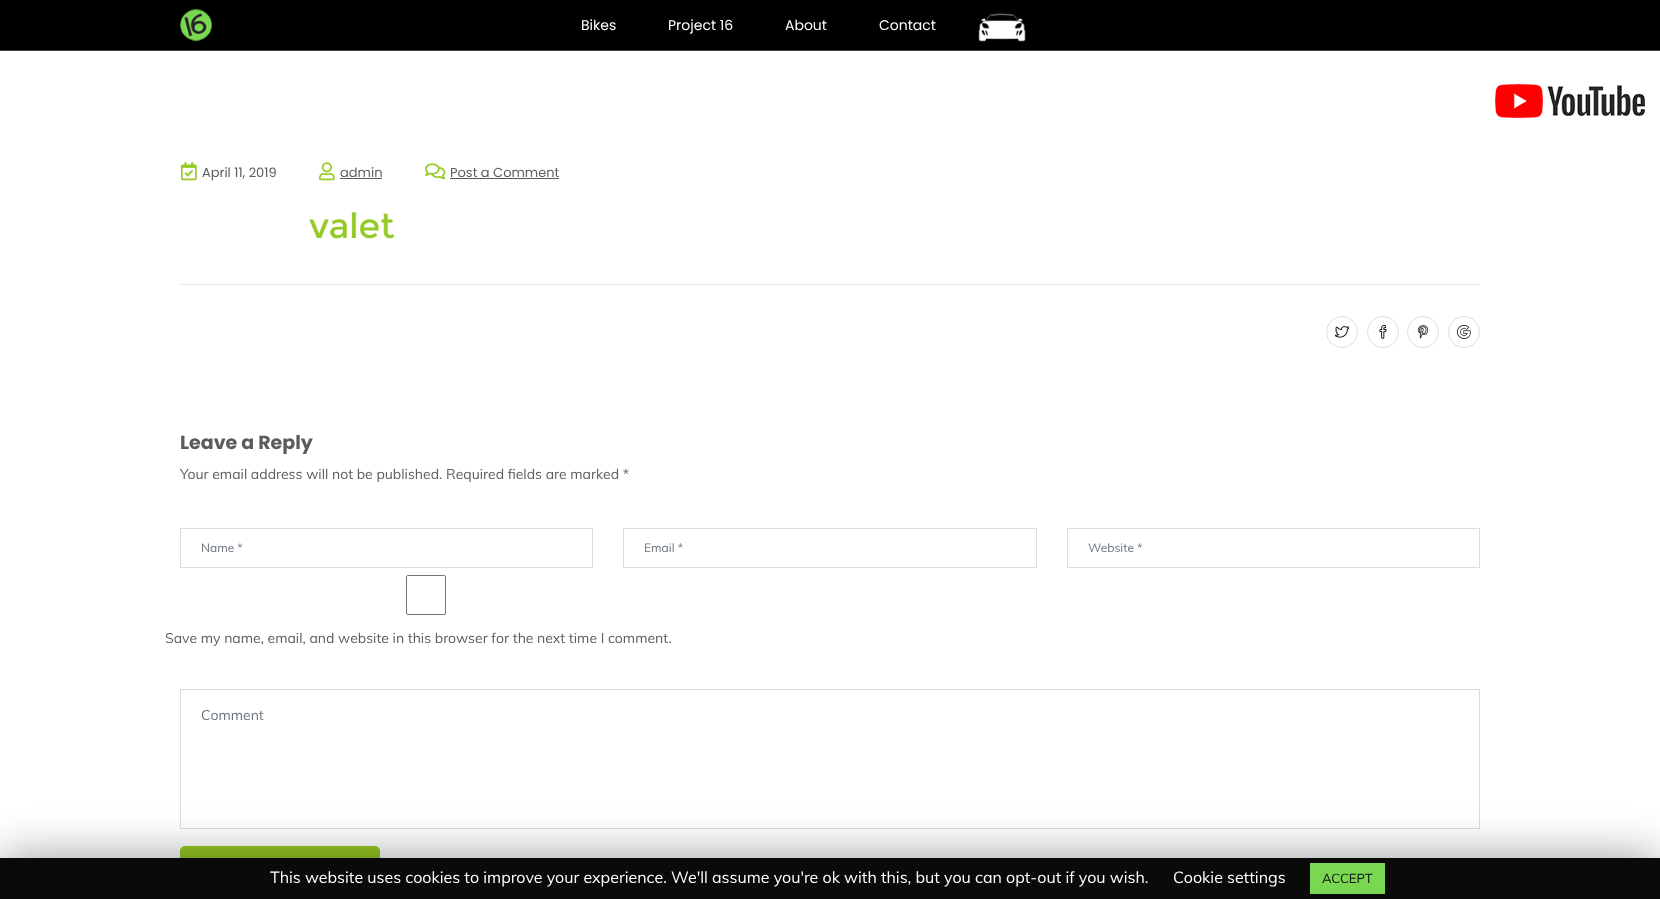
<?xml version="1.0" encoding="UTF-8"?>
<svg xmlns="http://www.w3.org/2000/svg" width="1660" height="899">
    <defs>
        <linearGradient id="g1" gradientUnits="userSpaceOnUse" x1="830" y1="51" x2="830" y2="50"><stop offset="0" stop-color="#3B3B3B"/><stop offset="1" stop-color="#434343"/></linearGradient>
        <filter id="blur1" x="-50%" y="-200%" width="200%" height="500%"><feGaussianBlur stdDeviation="25"/></filter>
    </defs>
    <rect width="100%" height="100%" fill="#FFFFFF"/>
    <rect x="0" y="0" width="1660" height="50" fill="#000000"/>
    <image x="180" y="8" width="32" height="34" href="img_01.png"/>
    <text x="581" y="30" font-family="Poppins" font-size="14" fill="#FFFFFF">Bikes</text>
    <text x="668" y="30" font-family="Poppins" font-size="14" fill="#FFFFFF">Project 16</text>
    <text x="785" y="30" font-family="Poppins" font-size="14" fill="#FFFFFF">About</text>
    <text x="879" y="30" font-family="Poppins" font-size="14" fill="#FFFFFF">Contact</text>
    <image x="978" y="13" width="48" height="29" href="img_02.png"/>
    <rect x="0" y="50" width="1660" height="1" fill="url(#g1)"/>
    <image x="1495" y="84" width="150" height="34" href="img_03.png"/>
    <image x="181" y="162" width="16" height="19" href="img_04.png"/>
    <text x="202" y="177" font-family="Poppins" font-size="13" fill="#5C5C5C">April 11, 2019</text>
    <image x="319" y="162" width="16" height="19" href="img_05.png"/>
    <text x="340" y="177" font-family="Poppins" font-size="13" fill="#5C5C5C">admin</text>
    <rect x="340" y="178" width="42" height="1" fill="#5C5C5C"/>
    <image x="425" y="163" width="21" height="17" href="img_06.png"/>
    <text x="450" y="177" font-family="Poppins" font-size="13" fill="#5C5C5C">Post a Comment</text>
    <rect x="450" y="178" width="109" height="1" fill="#5C5C5C"/>
    <rect x="180" y="284" width="1300" height="1" fill="#E8E8E8"/>
    <image x="309" y="211" width="86" height="28" href="img_07.png"/>
    <circle cx="1342" cy="332" r="15.5" fill="none" stroke="#DDDDDD"/>
    <image x="1335" y="326" width="14" height="12" href="img_08.png"/>
    <circle cx="1383" cy="332" r="15.5" fill="none" stroke="#DDDDDD"/>
    <image x="1379" y="325" width="8" height="14" href="img_09.png"/>
    <circle cx="1423" cy="332" r="15.5" fill="none" stroke="#DDDDDD"/>
    <image x="1417" y="325" width="12" height="14" href="img_10.png"/>
    <circle cx="1464" cy="332" r="15.5" fill="none" stroke="#DDDDDD"/>
    <image x="1457" y="325" width="14" height="14" href="img_11.png"/>
    <text x="180" y="449" font-family="Poppins" font-size="19" font-weight="700" fill="#5C5C5C">Leave a Reply</text>
    <text x="180" y="479" font-family="Muli" font-size="14" fill="#5C5C5C">Your email address will not be published. Required fields are marked *</text>
    <rect x="180.5" y="528.5" width="412" height="39" fill="none" stroke="#DDDDDD"/>
    <text x="201" y="552" font-family="Muli" font-size="12" fill="#6C757D">Name *</text>
    <rect x="623.5" y="528.5" width="413" height="39" fill="none" stroke="#DDDDDD"/>
    <text x="644" y="552" font-family="Muli" font-size="12" fill="#6C757D">Email *</text>
    <rect x="1067.5" y="528.5" width="412" height="39" fill="none" stroke="#DDDDDD"/>
    <text x="1088" y="552" font-family="Muli" font-size="12" fill="#6C757D">Website *</text>
    <rect x="406.5" y="575.5" width="39" height="39" rx="1.5" fill="none" stroke="#767676"/>
    <text x="165" y="643" font-family="Muli" font-size="14" fill="#5C5C5C">Save my name, email, and website in this browser for the next time I comment.</text>
    <rect x="180.5" y="689.5" width="1299" height="139" fill="none" stroke="#DDDDDD"/>
    <text x="201" y="720" font-family="Muli" font-size="14" fill="#6C757D">Comment</text>
    <rect x="180" y="846" width="200" height="47" rx="5" fill="#95CA24"/>
    <rect x="0" y="863" width="1660" height="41" fill="#000000" fill-opacity="0.5" filter="url(#blur1)"/>
    <rect x="0" y="858" width="1660" height="41" fill="#0A0A0A"/>
    <text x="270" y="883" font-family="Muli" font-size="16" fill="#FFFFFF">This website uses cookies to improve your experience. We'll assume you're ok with this, but you can opt-out if you wish.</text>
    <text x="1173" y="883" font-family="Muli" font-size="16" fill="#FFFFFF">Cookie settings</text>
    <rect x="1310" y="863" width="75" height="31" fill="#7AD752"/>
    <text x="1322" y="883" font-family="Muli" font-size="13" fill="#0A0A0A">ACCEPT</text>
</svg>
